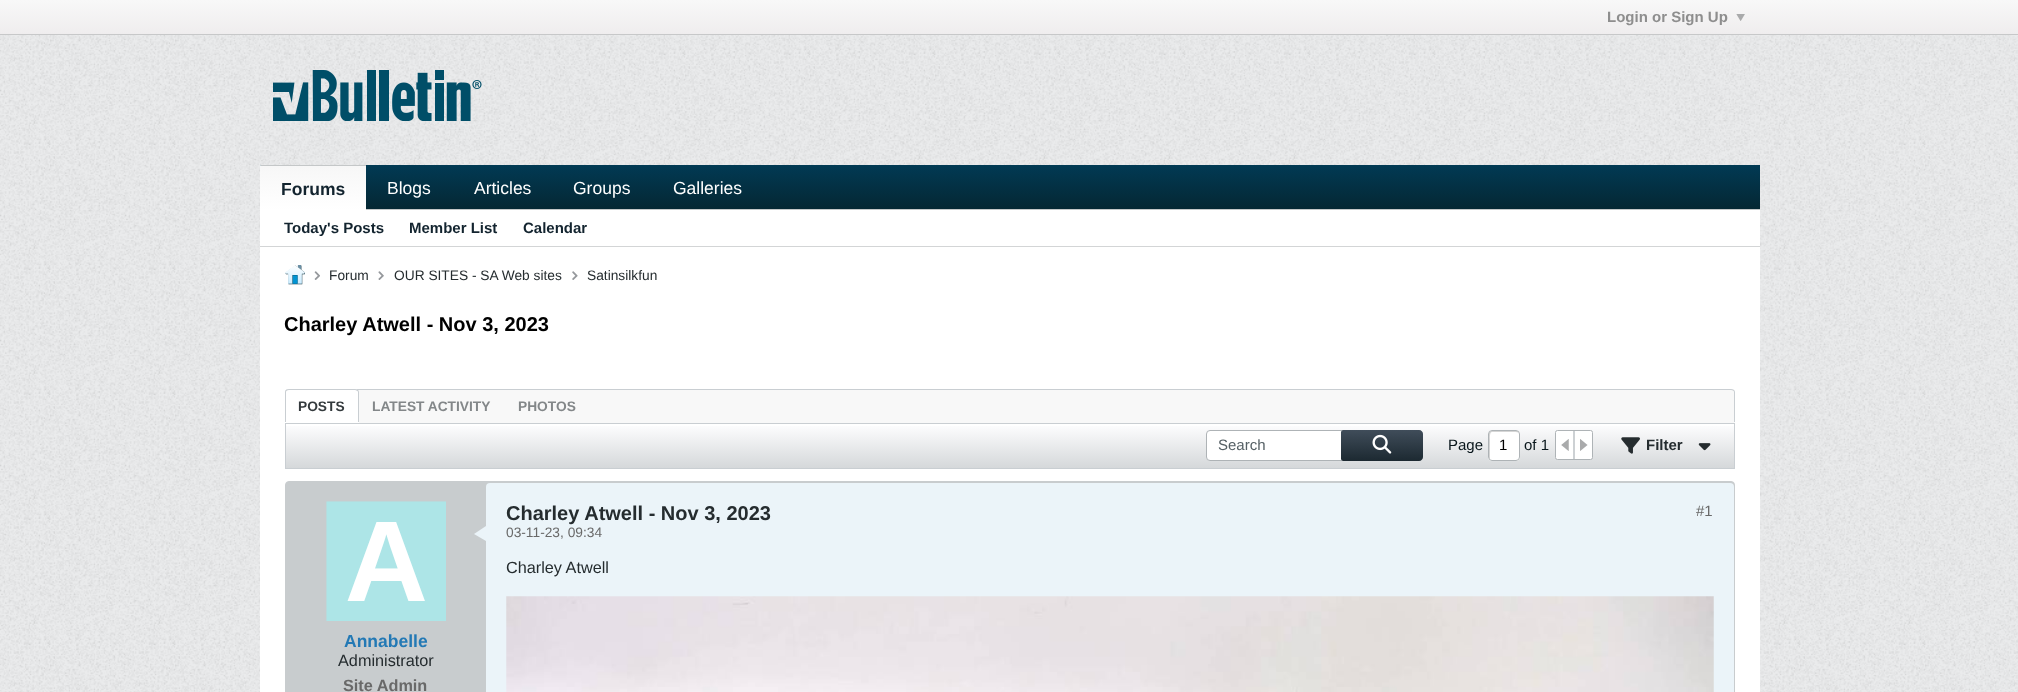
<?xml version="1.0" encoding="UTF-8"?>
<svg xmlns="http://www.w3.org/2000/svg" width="2018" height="692">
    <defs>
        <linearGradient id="g1" gradientUnits="userSpaceOnUse" x1="1009" y1="0" x2="1009" y2="34"><stop offset="0" stop-color="#F8F8F8"/><stop offset="1" stop-color="#EFEDEE"/></linearGradient>
        <linearGradient id="g2" gradientUnits="userSpaceOnUse" x1="1010" y1="165" x2="1010" y2="209"><stop offset="0" stop-color="#013A54"/><stop offset="1" stop-color="#052733"/></linearGradient>
        <linearGradient id="g3" gradientUnits="userSpaceOnUse" x1="313" y1="123" x2="313" y2="166"><stop offset="0" stop-color="#F7F7F7"/><stop offset="1" stop-color="#FFFFFF"/></linearGradient>
        <linearGradient id="g4" gradientUnits="userSpaceOnUse" x1="313" y1="166" x2="313" y2="210"><stop offset="0" stop-color="#F7F7F7"/><stop offset="1" stop-color="#FFFFFF"/></linearGradient>
        <linearGradient id="g5" gradientUnits="userSpaceOnUse" x1="1010" y1="424" x2="1010" y2="468"><stop offset="0" stop-color="#FEFEFF"/><stop offset="1" stop-color="#D5D8DA"/></linearGradient>
        <linearGradient id="g6" gradientUnits="userSpaceOnUse" x1="1382" y1="430" x2="1382" y2="461"><stop offset="0" stop-color="#404D5A"/><stop offset="1" stop-color="#1C2931"/></linearGradient>
    </defs>
    <rect width="100%" height="100%" fill="#EAEBEC"/>
    <image x="0" y="35" width="2018" height="657" href="img_01.png"/>
    <rect x="0" y="0" width="2018" height="34" fill="url(#g1)"/>
    <rect x="0" y="34" width="2018" height="1" fill="#C7C8C9"/>
    <text x="1607" y="22" font-family="Liberation Sans" font-size="15" font-weight="700" fill="#8E8E8E">Login or Sign Up</text>
    <image x="1736" y="14" width="9" height="7" href="img_02.png"/>
    <rect x="260" y="35" width="1500" height="130" fill="#EAEBEC"/>
    <image x="260" y="35" width="1500" height="130" href="img_03.png"/>
    <image x="273" y="70" width="209" height="51" href="img_04.png"/>
    <rect x="260" y="165" width="1500" height="44" fill="url(#g2)"/>
    <rect x="366" y="209" width="1394" height="1" fill="#C4C7C8"/>
    <path d="M 261 165 H 365 C 365.5 165 366 165.5 366 166 H 260 C 260 165.5 260.5 165 261 165 Z" fill="url(#g3)"/>
    <rect x="260" y="166" width="106" height="44" fill="url(#g4)"/>
    <rect x="261" y="165" width="105" height="1" fill="#C4C7C8"/>
    <text x="281" y="195" font-family="Liberation Sans" font-size="17.5" font-weight="700" fill="#13242F">Forums</text>
    <text x="387" y="194" font-family="Liberation Sans" font-size="17.5" fill="#FFFFFF">Blogs</text>
    <text x="474" y="194" font-family="Liberation Sans" font-size="17.5" fill="#FFFFFF">Articles</text>
    <text x="573" y="194" font-family="Liberation Sans" font-size="17.5" fill="#FFFFFF">Groups</text>
    <text x="673" y="194" font-family="Liberation Sans" font-size="17.5" fill="#FFFFFF">Galleries</text>
    <rect x="260" y="210" width="1500" height="482" fill="#FFFFFF"/>
    <rect x="260" y="246" width="1500" height="1" fill="#D3D5D6"/>
    <text x="284" y="233" font-family="Liberation Sans" font-size="15" font-weight="700" fill="#13242F">Today's Posts</text>
    <text x="409" y="233" font-family="Liberation Sans" font-size="15" font-weight="700" fill="#13242F">Member List</text>
    <text x="523" y="233" font-family="Liberation Sans" font-size="15" font-weight="700" fill="#13242F">Calendar</text>
    <image x="285" y="265" width="20" height="20" href="img_05.png"/>
    <image x="314" y="271" width="6" height="9" href="img_06.png"/>
    <text x="329" y="280" font-family="Liberation Sans" font-size="13.75" fill="#252C2F">Forum</text>
    <image x="378" y="271" width="6" height="9" href="img_07.png"/>
    <text x="394" y="280" font-family="Liberation Sans" font-size="13.75" fill="#252C2F">OUR SITES - SA Web sites</text>
    <image x="572" y="271" width="6" height="9" href="img_08.png"/>
    <text x="587" y="280" font-family="Liberation Sans" font-size="13.75" fill="#252C2F">Satinsilkfun</text>
    <text x="284" y="331" font-family="Liberation Sans" font-size="20" font-weight="700" fill="#000000">Charley Atwell - Nov 3, 2023</text>
    <path d="M 289 389 H 1731 C 1733 389 1735 391 1735 393 V 423 H 285 V 393 C 285 391 287 389 289 389 Z" fill="#F8F8F8"/>
    <path d="M 289 389 H 1731 C 1733 389 1735 390 1735 392 V 422 H 285 V 392 C 285 390 287 389 289 389 Z M 289 390 H 1731 C 1733 390 1734 391 1734 392 V 422 H 286 V 392 C 286 391 287 390 289 390 Z" fill="#C9CED2" fill-rule="evenodd"/>
    <path d="M 289 389 H 355 C 357 389 359 391 359 393 V 423 H 285 V 393 C 285 391 287 389 289 389 Z" fill="#FFFFFF"/>
    <path d="M 289 389 H 355 C 357 389 359 390 359 392 V 422 H 285 V 392 C 285 390 287 389 289 389 Z M 289 390 H 355 C 356 390 358 391 358 392 V 422 H 286 V 392 C 286 391 287 390 289 390 Z" fill="#C9CED2" fill-rule="evenodd"/>
    <text x="298" y="411" font-family="Liberation Sans" font-size="13.75" font-weight="700" fill="#343A3D">POSTS</text>
    <text x="372" y="411" font-family="Liberation Sans" font-size="13.75" font-weight="700" fill="#838789">LATEST ACTIVITY</text>
    <text x="518" y="411" font-family="Liberation Sans" font-size="13.75" font-weight="700" fill="#838789">PHOTOS</text>
    <rect x="286" y="426" width="1448" height="42" fill="url(#g5)"/>
    <rect x="285.5" y="423.5" width="1449" height="45" fill="none" stroke="#C9CED2"/>
    <rect x="1206.5" y="430.5" width="216" height="30" rx="3.5" fill="#FFFFFF" stroke="#AEB3B6"/>
    <text x="1218" y="450" font-family="Liberation Sans" font-size="15" fill="#556065">Search</text>
    <path d="M 1343.5 430 H 1419 C 1421 430 1423 432 1423 434 V 457 C 1423 459 1421 461 1419 461 H 1343.5 C 1342 461 1341 460 1341 458.5 V 432.5 C 1341 431 1342 430 1343.5 430 Z" fill="url(#g6)"/>
    <image x="1372" y="434" width="20" height="20" href="img_09.png"/>
    <text x="1448" y="450" font-family="Liberation Sans" font-size="15" fill="#09161B">Page</text>
    <rect x="1488" y="430" width="32" height="31" rx="4" fill="#FFFFFF"/>
    <path d="M 1492 432 C 1495 432 1517.5 431.5 1518.5 432.5 C 1518.5 431.5 1517.5 431 1516.5 431 H 1491.5 C 1490 431 1489 432 1489 433.5 V 457.5 C 1489 458.5 1489.5 459 1490 459.5 V 439 C 1490 438.5 1489.5 432 1492 432 Z" fill="#D5D5D5"/>
    <rect x="1488.5" y="430.5" width="31" height="30" rx="3.5" fill="none" stroke="#AEB3B6"/>
    <text x="1499" y="450" font-family="Liberation Sans" font-size="15" fill="#000000">1</text>
    <text x="1524" y="450" font-family="Liberation Sans" font-size="15" fill="#09161B">of 1</text>
    <rect x="1555.5" y="430.5" width="37" height="29" rx="2" fill="#FFFFFF" stroke="#AEB3B6"/>
    <rect x="1573" y="431" width="2" height="28" fill="#CDD1D4"/>
    <image x="1561" y="439" width="8" height="12" href="img_10.png"/>
    <image x="1580" y="439" width="8" height="12" href="img_11.png"/>
    <image x="1621" y="437" width="19" height="17" href="img_12.png"/>
    <text x="1646" y="450" font-family="Liberation Sans" font-size="15" font-weight="700" fill="#252C2F">Filter</text>
    <image x="1698" y="443" width="13" height="8" href="img_13.png"/>
    <rect x="285.5" y="481.5" width="1449" height="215" rx="3.5" fill="#C8CCCE" stroke="#C8CCCE"/>
    <rect x="486" y="483" width="1248" height="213" rx="4" fill="#EBF4F9"/>
    <path d="M 486 526 V 541 L 474 534 Z" fill="#EBF4F9"/>
    <text x="506" y="520" font-family="Liberation Sans" font-size="20" font-weight="700" fill="#252C2F">Charley Atwell - Nov 3, 2023</text>
    <text x="506" y="537" font-family="Liberation Sans" font-size="13.75" fill="#696969">03-11-23, 09:34</text>
    <text x="1696" y="516" font-family="Liberation Sans" font-size="15" fill="#696969">#1</text>
    <text x="506" y="573" font-family="Liberation Sans" font-size="16.25" fill="#252C2F">Charley Atwell</text>
    <image x="506" y="596" width="1208" height="96" href="img_14.png"/>
    <image x="326" y="501" width="120" height="120" href="img_15.png"/>
    <text x="344" y="647" font-family="Liberation Sans" font-size="17.5" font-weight="700" fill="#2379B5">Annabelle</text>
    <text x="338" y="666" font-family="Liberation Sans" font-size="16.25" fill="#252C2F">Administrator</text>
    <text x="343" y="691" font-family="Liberation Sans" font-size="16.25" font-weight="700" fill="#696969">Site Admin</text>
</svg>
